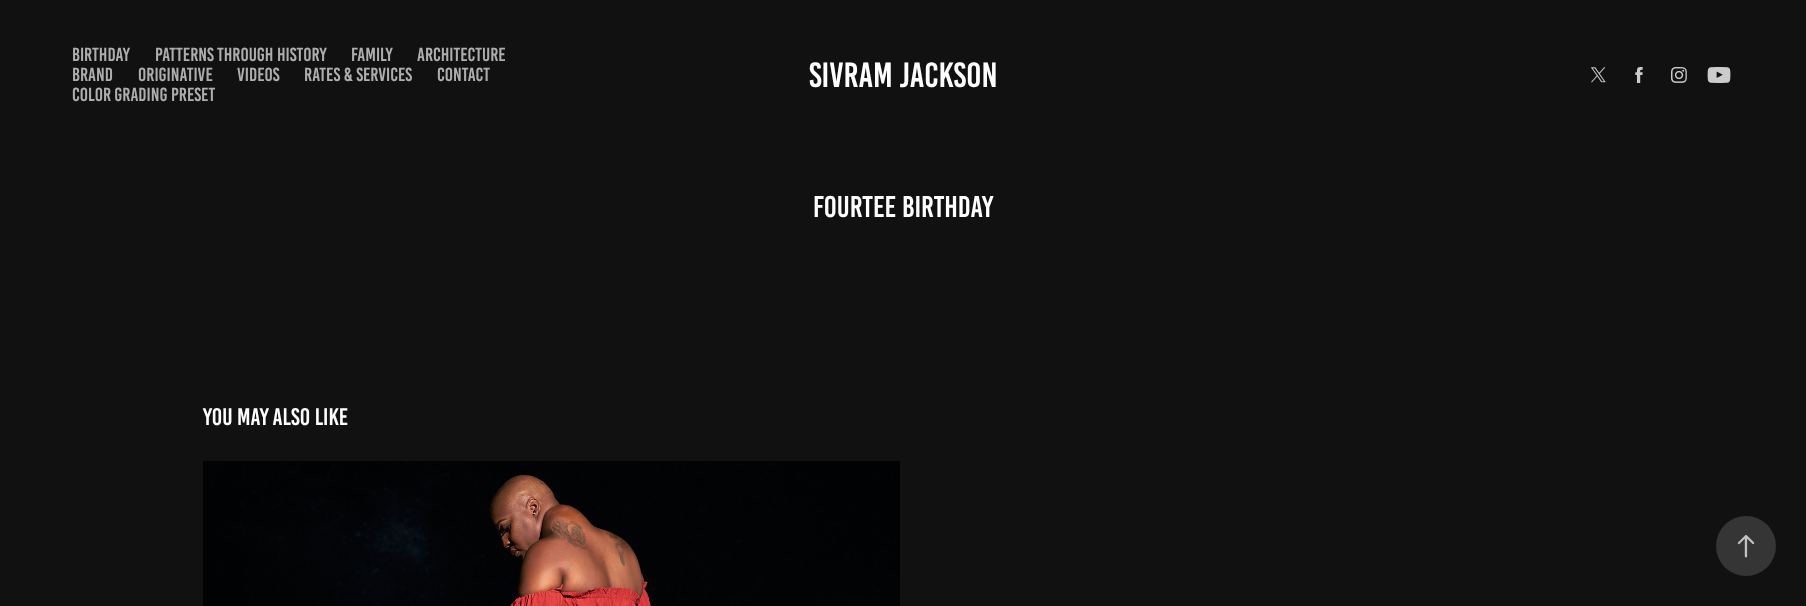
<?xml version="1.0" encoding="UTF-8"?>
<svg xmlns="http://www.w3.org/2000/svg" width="1806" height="606">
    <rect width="100%" height="100%" fill="#111111"/>
    <text x="72" y="61" font-family="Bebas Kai" font-size="19" fill="#AEAEAE">BIRTHDAY</text>
    <text x="155" y="61" font-family="Bebas Kai" font-size="19" fill="#AEAEAE">PATTERNS THROUGH HISTORY</text>
    <text x="351" y="61" font-family="Bebas Kai" font-size="19" fill="#AEAEAE">FAMILY</text>
    <text x="417" y="61" font-family="Bebas Kai" font-size="19" fill="#AEAEAE">ARCHITECTURE</text>
    <text x="72" y="81" font-family="Bebas Kai" font-size="19" fill="#AEAEAE">BRAND</text>
    <text x="138" y="81" font-family="Bebas Kai" font-size="19" fill="#AEAEAE">ORIGINATIVE</text>
    <text x="237" y="81" font-family="Bebas Kai" font-size="19" fill="#AEAEAE">VIDEOS</text>
    <text x="304" y="81" font-family="Bebas Kai" font-size="19" fill="#AEAEAE">RATES &amp; SERVICES</text>
    <text x="437" y="81" font-family="Bebas Kai" font-size="19" fill="#AEAEAE">CONTACT</text>
    <text x="72" y="101" font-family="Bebas Kai" font-size="19" fill="#AEAEAE">COLOR GRADING PRESET</text>
    <text x="809" y="87" font-family="Bebas Kai" font-size="35" fill="#FFFFFF">SIVRAM JACKSON</text>
    <image x="1591" y="67" width="15" height="16" href="img_01.png"/>
    <image x="1635" y="67" width="8" height="16" href="img_02.png"/>
    <image x="1671" y="67" width="16" height="16" href="img_03.png"/>
    <image x="1707" y="67" width="24" height="16" href="img_04.png"/>
    <text x="813" y="217" font-family="Bebas Kai" font-size="30" fill="#FFFFFF">Fourtee Birthday</text>
    <text x="203" y="425" font-family="Bebas Kai" font-size="24" fill="#FFFFFF">You may also like</text>
    <image x="203" y="461" width="697" height="145" href="img_05.png"/>
    <circle cx="1746" cy="546" r="30" fill="#353535"/>
    <image x="1737" y="535" width="18" height="23" href="img_06.png"/>
</svg>
